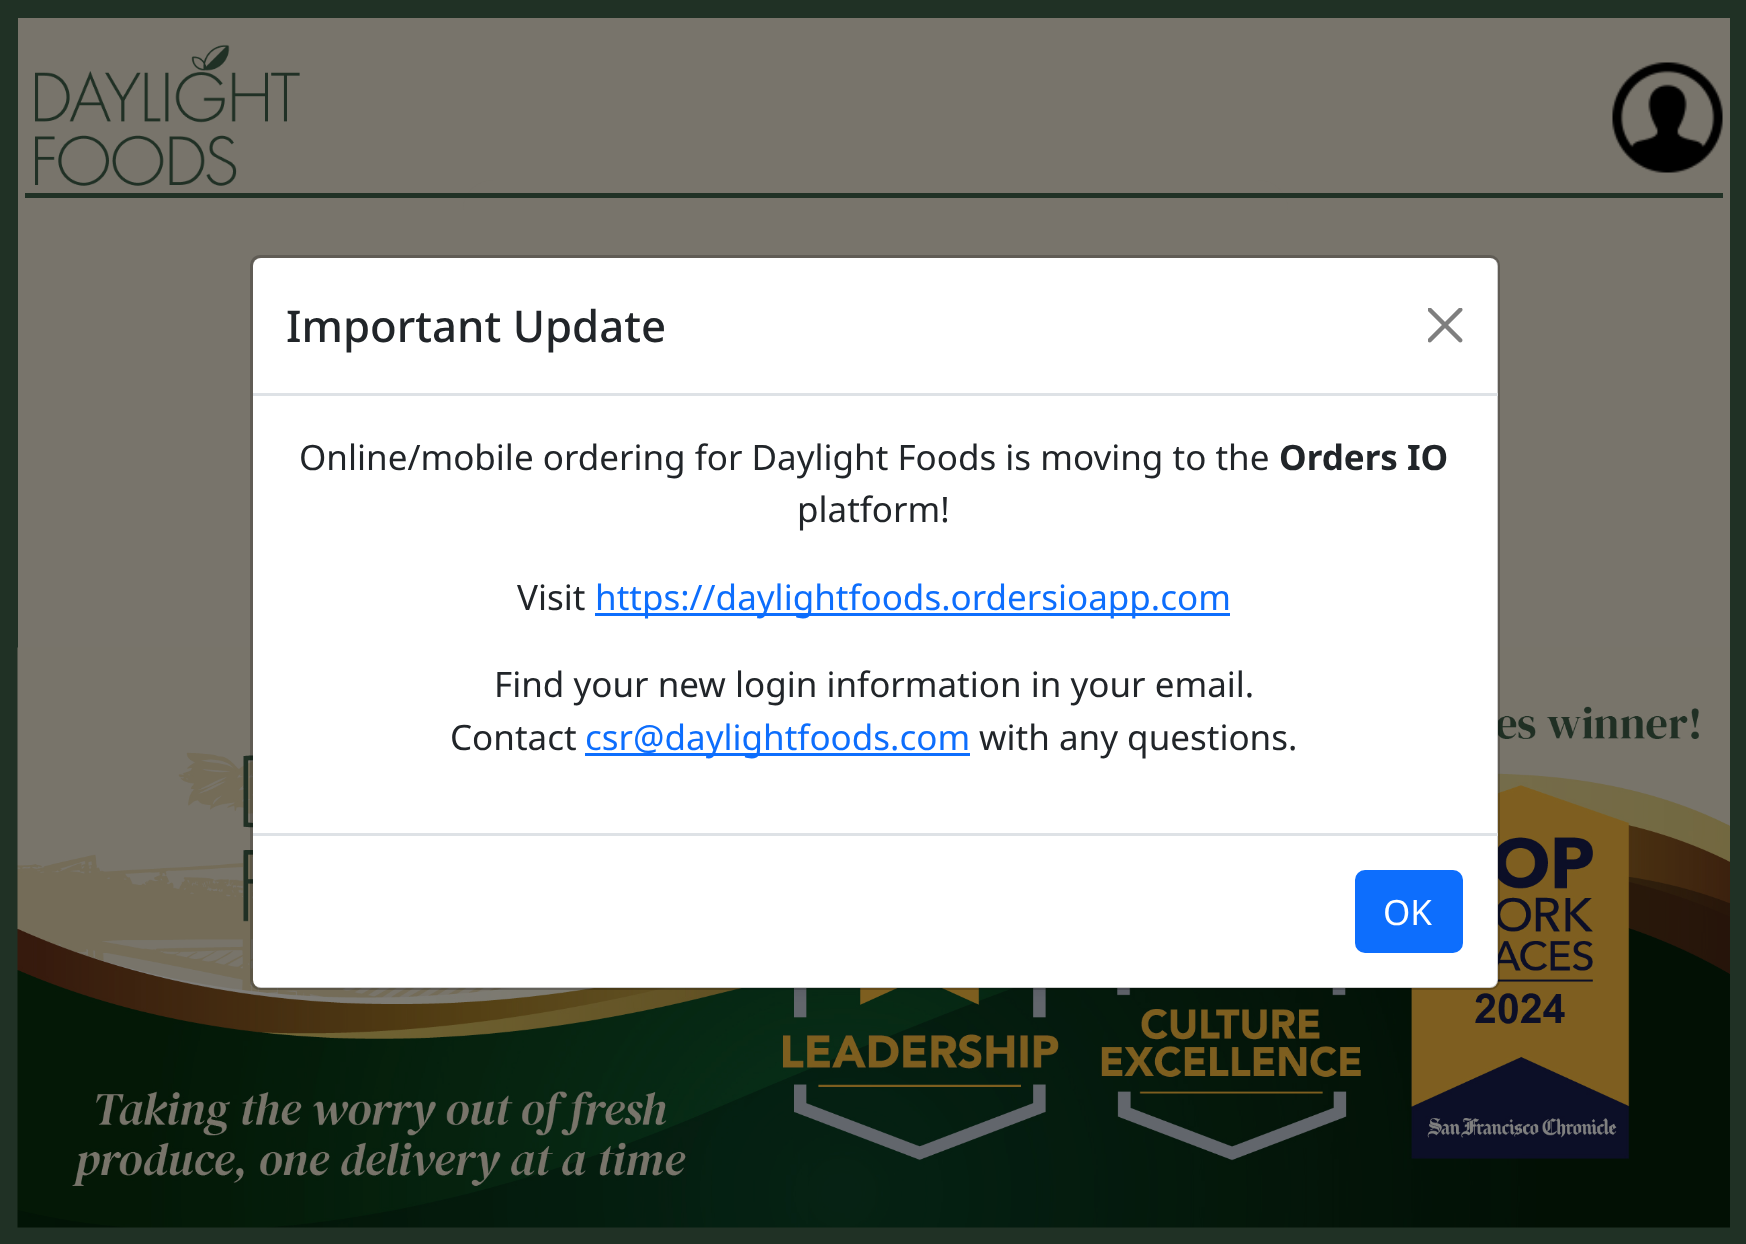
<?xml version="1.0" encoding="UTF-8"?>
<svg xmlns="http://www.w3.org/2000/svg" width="1746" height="1244">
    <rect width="100%" height="100%" fill="#78746B"/>
    <rect x="9" y="9" width="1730" height="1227" fill="none" stroke="#203125" stroke-width="18"/>
    <image x="17" y="647" width="1713" height="581" href="img_03.png"/>
    <rect x="463" y="180" width="825" height="783" rx="30" fill="#78746B"/>
    <rect x="25" y="193" width="1698" height="5" fill="#203125"/>
    <image x="35" y="44" width="265" height="142" href="img_01.png"/>
    <image x="1612" y="62" width="111" height="111" href="img_02.png"/>
    <rect x="253" y="258" width="1245" height="730" rx="8" fill="#FFFFFF"/>
    <rect x="251.5" y="256.5" width="1247" height="732" rx="8.5" fill="none" stroke="#000000" stroke-opacity="0.2" stroke-width="3"/>
    <rect x="253" y="393" width="1245" height="3" fill="#DEE2E6"/>
    <text x="286" y="342" font-family="Noto Sans" font-size="43.75" font-weight="500" fill="#212529">Important Update</text>
    <image x="1428" y="308" width="35" height="35" href="img_04.png"/>
    <text x="299" y="470" font-family="Noto Sans" font-size="35" fill="#212529">Online/mobile ordering for Daylight Foods is moving to the</text>
    <text x="1279" y="470" font-family="Noto Sans" font-size="35" font-weight="700" fill="#212529">Orders IO</text>
    <text x="797" y="522" font-family="Noto Sans" font-size="35" fill="#212529">platform!</text>
    <text x="517" y="610" font-family="Noto Sans" font-size="35" fill="#212529">Visit</text>
    <rect x="595" y="613" width="635" height="3" fill="#0D6EFD"/>
    <text x="595" y="610" font-family="Noto Sans" font-size="35" fill="#0D6EFD">https://daylightfoods.ordersioapp.com</text>
    <text x="494" y="697" font-family="Noto Sans" font-size="35" fill="#212529">Find your new login information in your email.</text>
    <text x="450" y="750" font-family="Noto Sans" font-size="35" fill="#212529">Contact</text>
    <rect x="585" y="753" width="385" height="3" fill="#0D6EFD"/>
    <text x="585" y="750" font-family="Noto Sans" font-size="35" fill="#0D6EFD">csr@daylightfoods.com</text>
    <text x="979" y="750" font-family="Noto Sans" font-size="35" fill="#212529">with any questions.</text>
    <rect x="253" y="833" width="1245" height="3" fill="#DEE2E6"/>
    <rect x="1356.5" y="871.5" width="105" height="80" rx="8.5" fill="#0D6EFD" stroke="#0D6EFD" stroke-width="3"/>
    <text x="1383" y="925" font-family="Noto Sans" font-size="35" fill="#FFFFFF">OK</text>
</svg>
